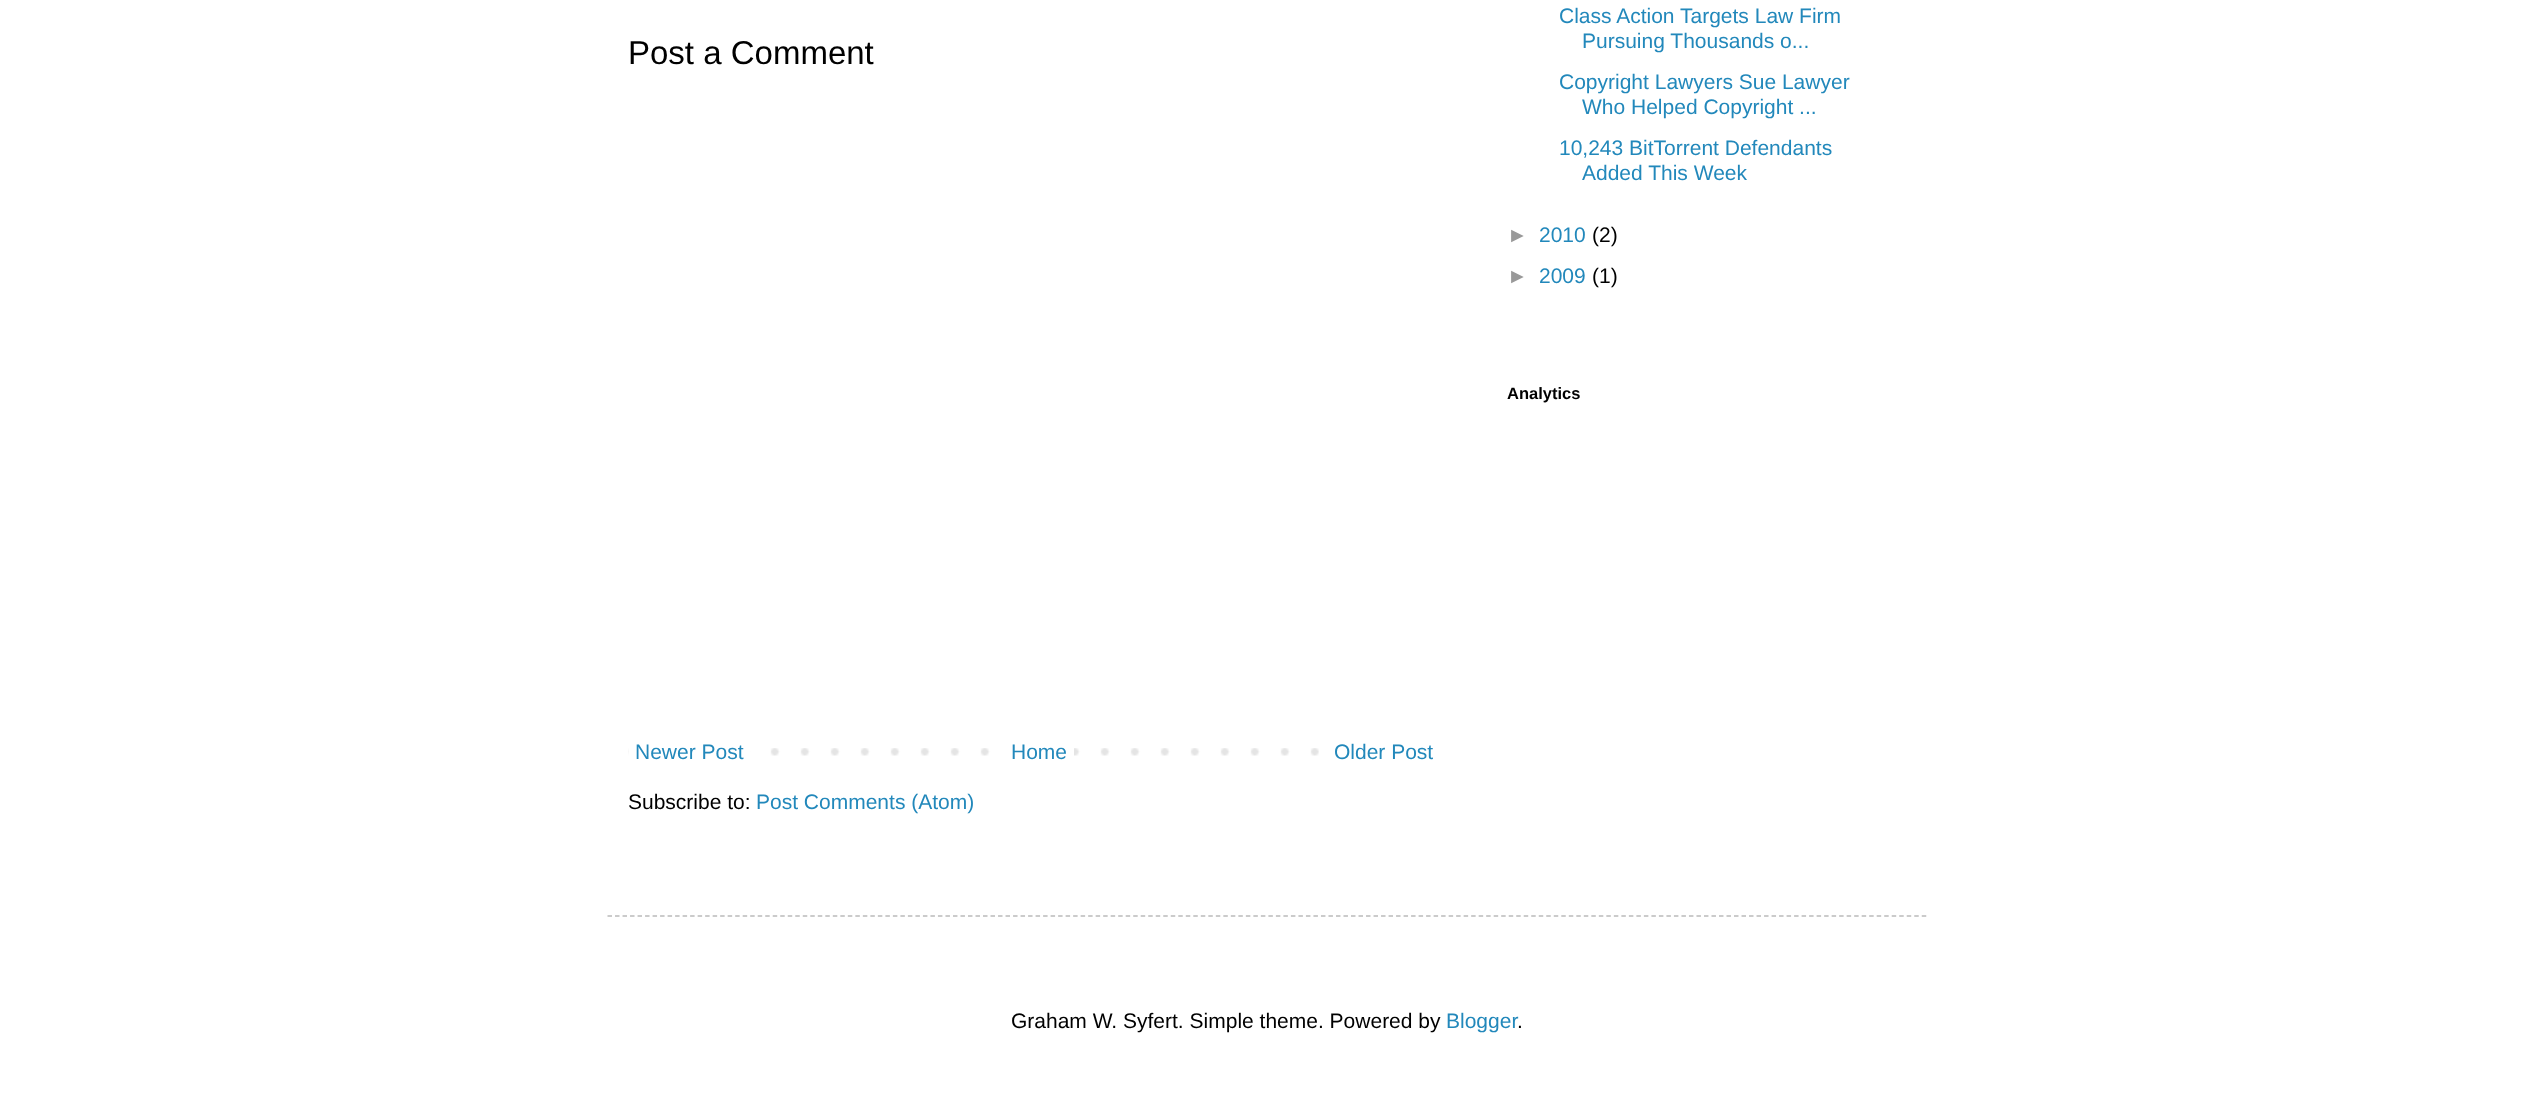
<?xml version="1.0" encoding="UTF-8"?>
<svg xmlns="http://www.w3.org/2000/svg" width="2533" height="1094">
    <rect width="100%" height="100%" fill="#FFFFFF"/>
    <text x="628" y="64" font-family="Liberation Sans" font-size="33" fill="#000000">Post a Comment</text>
    <image x="628" y="748" width="691" height="8" href="img_01.png"/>
    <rect x="629" y="748" width="121" height="8" fill="#FFFFFF"/>
    <text x="635" y="759" font-family="Arimo" font-size="21" fill="#2288BB">Newer Post</text>
    <rect x="1010" y="748" width="64" height="8" fill="#FFFFFF"/>
    <text x="1011" y="759" font-family="Arimo" font-size="21" fill="#2288BB">Home</text>
    <text x="1334" y="759" font-family="Arimo" font-size="21" fill="#2288BB">Older Post</text>
    <text x="628" y="809" font-family="Arimo" font-size="21" fill="#000000">Subscribe to:</text>
    <text x="756" y="809" font-family="Arimo" font-size="21" fill="#2288BB">Post Comments (Atom)</text>
    <text x="1559" y="23" font-family="Arimo" font-size="21" fill="#2288BB">Class Action Targets Law Firm</text>
    <text x="1582" y="48" font-family="Arimo" font-size="21" fill="#2288BB">Pursuing Thousands o...</text>
    <text x="1559" y="89" font-family="Arimo" font-size="21" fill="#2288BB">Copyright Lawyers Sue Lawyer</text>
    <text x="1582" y="114" font-family="Arimo" font-size="21" fill="#2288BB">Who Helped Copyright ...</text>
    <text x="1559" y="155" font-family="Arimo" font-size="21" fill="#2288BB">10,243 BitTorrent Defendants</text>
    <text x="1582" y="180" font-family="Arimo" font-size="21" fill="#2288BB">Added This Week</text>
    <text x="1507" y="242" font-family="Liberation Sans" font-size="21" fill="#999999">►</text>
    <text x="1539" y="242" font-family="Arimo" font-size="21" fill="#2288BB">2010</text>
    <text x="1592" y="242" font-family="Arimo" font-size="21" fill="#000000">(2)</text>
    <text x="1507" y="283" font-family="Liberation Sans" font-size="21" fill="#999999">►</text>
    <text x="1539" y="283" font-family="Arimo" font-size="21" fill="#2288BB">2009</text>
    <text x="1592" y="283" font-family="Arimo" font-size="21" fill="#000000">(1)</text>
    <text x="1507" y="399" font-family="Liberation Sans" font-size="16.5" font-weight="700" fill="#000000">Analytics</text>
    <path d="M 607.5 916 H 1927.5" fill="none" stroke="#BBBBBB" stroke-width="1.5" stroke-dasharray="4.5 3.01"/>
    <text x="1011" y="1028" font-family="Arimo" font-size="21" fill="#000000">Graham W. Syfert. Simple theme. Powered by</text>
    <text x="1446" y="1028" font-family="Arimo" font-size="21" fill="#2288BB">Blogger</text>
    <text x="1517" y="1028" font-family="Arimo" font-size="21" fill="#000000">.</text>
</svg>
